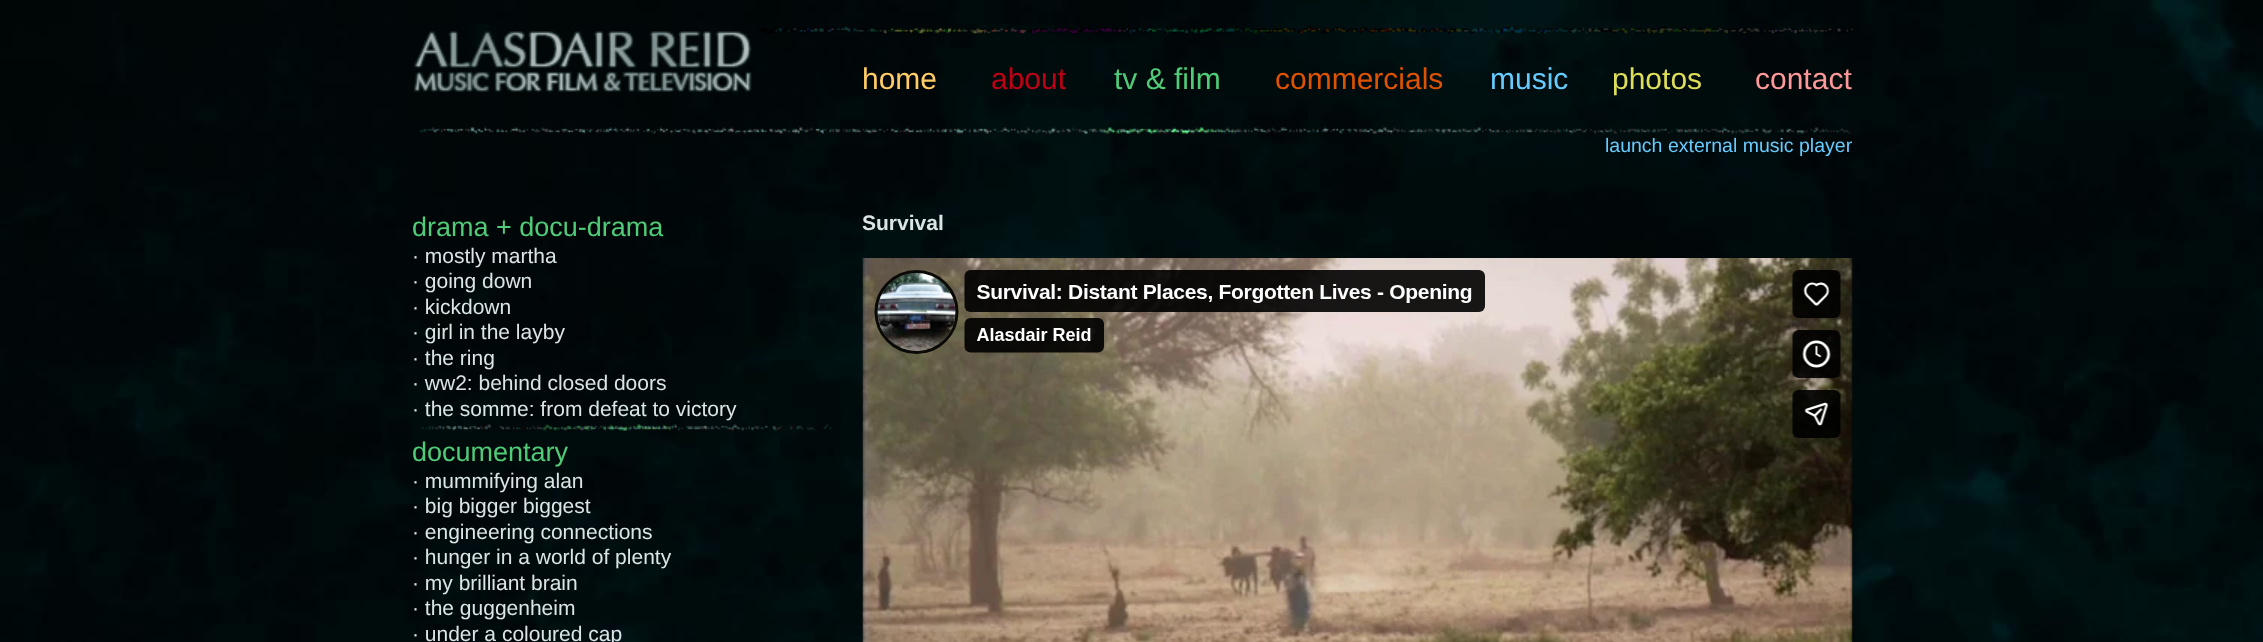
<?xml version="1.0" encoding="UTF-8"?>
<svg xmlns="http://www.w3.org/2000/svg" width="2263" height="642">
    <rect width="100%" height="100%" fill="#FFFFFF"/>
    <image x="0" y="0" width="2263" height="642" href="img_01.png"/>
    <image x="2181" y="46" width="14" height="28" href="img_02.png"/>
    <image x="413" y="31" width="339" height="61" href="img_03.png"/>
    <image x="759" y="27" width="1094" height="8" href="img_04.png"/>
    <text x="862" y="89" font-family="Liberation Sans" font-size="30" fill="#FFCC66">home</text>
    <text x="991" y="89" font-family="Liberation Sans" font-size="30" fill="#BE0016">about</text>
    <text x="1114" y="89" font-family="Liberation Sans" font-size="30" fill="#50CB78">tv &amp; film</text>
    <text x="1275" y="89" font-family="Liberation Sans" font-size="30" fill="#DE5301">commercials</text>
    <text x="1490" y="89" font-family="Liberation Sans" font-size="30" fill="#66CCFF">music</text>
    <text x="1612" y="89" font-family="Liberation Sans" font-size="30" fill="#DEDE59">photos</text>
    <text x="1755" y="89" font-family="Liberation Sans" font-size="30" fill="#FF9999">contact</text>
    <image x="419" y="127" width="1433" height="7" href="img_05.png"/>
    <text x="1605" y="152" font-family="Liberation Sans" font-size="19.5" fill="#66CCFF">launch external music player</text>
    <text x="412" y="236" font-family="Liberation Sans" font-size="27" fill="#50CB78">drama + docu-drama</text>
    <text font-family="Liberation Sans" font-size="21" fill="#DBE5E6">
        <tspan x="412" y="263">· mostly martha</tspan>
        <tspan x="412" y="288">· going down</tspan>
        <tspan x="412" y="314">· kickdown</tspan>
        <tspan x="412" y="339">· girl in the layby</tspan>
        <tspan x="412" y="365">· the ring</tspan>
        <tspan x="412" y="390">· ww2: behind closed doors</tspan>
        <tspan x="412" y="416">· the somme: from defeat to victory</tspan>
    </text>
    <image x="421" y="424" width="411" height="7" href="img_06.png"/>
    <text x="412" y="461" font-family="Liberation Sans" font-size="27" fill="#50CB78">documentary</text>
    <text font-family="Liberation Sans" font-size="21" fill="#DBE5E6">
        <tspan x="412" y="488">· mummifying alan</tspan>
        <tspan x="412" y="513">· big bigger biggest</tspan>
        <tspan x="412" y="539">· engineering connections</tspan>
        <tspan x="412" y="564">· hunger in a world of plenty</tspan>
        <tspan x="412" y="590">· my brilliant brain</tspan>
        <tspan x="412" y="615">· the guggenheim</tspan>
        <tspan x="412" y="641">· under a coloured cap</tspan>
    </text>
    <text x="862" y="230" font-family="Liberation Sans" font-size="21" font-weight="700" fill="#DBE5E6">Survival</text>
    <image x="862" y="258" width="991" height="384" href="img_07.png"/>
</svg>
